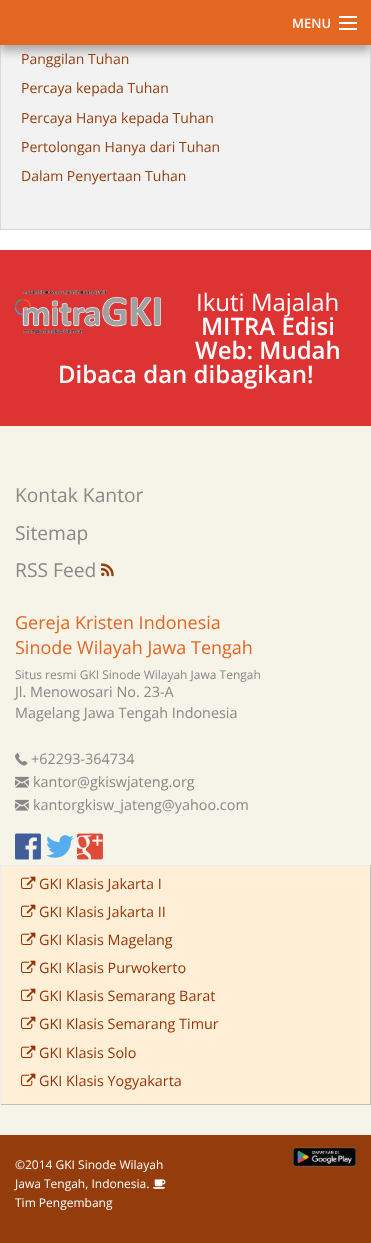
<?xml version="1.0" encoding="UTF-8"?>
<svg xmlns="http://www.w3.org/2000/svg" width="371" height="1243">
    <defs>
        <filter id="blur1" x="-50%" y="-200%" width="200%" height="500%"><feGaussianBlur stdDeviation="5"/></filter>
    </defs>
    <rect width="100%" height="100%" fill="#FFFFFF"/>
    <rect x="1" y="45" width="369" height="184" fill="#F2F2F2"/>
    <rect x="0.5" y="-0.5" width="370" height="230" fill="none" stroke="#D8D8D8"/>
    <rect x="0" y="6" width="371" height="45" fill="#A7A7A7" filter="url(#blur1)"/>
    <rect x="0" y="0" width="371" height="45" fill="#E36621"/>
    <text x="292" y="28" font-family="Open Sans" font-size="13" font-weight="600" fill="#FFFFFF">MENU</text>
    <rect x="339" y="28" width="18" height="2" fill="#FFFFFF"/>
    <rect x="339" y="22" width="18" height="2" fill="#FFFFFF"/>
    <rect x="339" y="16" width="18" height="2" fill="#FFFFFF"/>
    <text x="21" y="64" font-family="Open Sans" font-size="14" fill="#943C0B">Panggilan Tuhan</text>
    <text x="21" y="93" font-family="Open Sans" font-size="14" fill="#943C0B">Percaya kepada Tuhan</text>
    <text x="21" y="123" font-family="Open Sans" font-size="14" fill="#943C0B">Percaya Hanya kepada Tuhan</text>
    <text x="21" y="152" font-family="Open Sans" font-size="14" fill="#943C0B">Pertolongan Hanya dari Tuhan</text>
    <text x="21" y="181" font-family="Open Sans" font-size="14" fill="#943C0B">Dalam Penyertaan Tuhan</text>
    <rect x="0" y="250" width="371" height="176" fill="#DD3333"/>
    <image x="15" y="290" width="147" height="44" href="img_01.png"/>
    <text x="196" y="311" font-family="Open Sans" font-size="24" fill="#FFFFFF">Ikuti Majalah</text>
    <text x="201" y="335" font-family="Open Sans" font-size="24" font-weight="600" fill="#FFFFFF">MITRA Edisi</text>
    <text x="195" y="359" font-family="Open Sans" font-size="24" font-weight="600" fill="#FFFFFF">Web: Mudah</text>
    <text x="58" y="383" font-family="Open Sans" font-size="24" font-weight="600" fill="#FFFFFF">Dibaca dan dibagikan!</text>
    <rect x="0" y="426" width="371" height="709" fill="#F6F3E8"/>
    <text font-family="Open Sans" font-size="19.25" fill="#888888">
        <tspan x="15" y="502">Kontak Kantor</tspan>
        <tspan x="15" y="540">Sitemap</tspan>
        <tspan x="15" y="577">RSS Feed</tspan>
    </text>
    <image x="101" y="563" width="13" height="14" href="img_02.png"/>
    <text font-family="Open Sans" font-size="18" fill="#E36621">
        <tspan x="15" y="629">Gereja Kristen Indonesia</tspan>
        <tspan x="15" y="654">Sinode Wilayah Jawa Tengah</tspan>
    </text>
    <text x="15" y="679" font-family="Open Sans" font-size="12" fill="#888888">Situs resmi GKI Sinode Wilayah Jawa Tengah</text>
    <text font-family="Open Sans" font-size="14.4" fill="#888888">
        <tspan x="15" y="697">Jl. Menowosari No. 23-A</tspan>
        <tspan x="15" y="718">Magelang Jawa Tengah Indonesia</tspan>
    </text>
    <image x="15" y="753" width="13" height="13" href="img_03.png"/>
    <text x="31" y="764" font-family="Open Sans" font-size="14.4" fill="#888888">+62293-364734</text>
    <image x="15" y="776" width="14" height="12" href="img_04.png"/>
    <text x="33" y="787" font-family="Open Sans" font-size="14.4" fill="#888888">kantor@gkiswjateng.org</text>
    <image x="15" y="799" width="14" height="12" href="img_04.png"/>
    <text x="33" y="810" font-family="Open Sans" font-size="14.4" fill="#888888">kantorgkisw_jateng@yahoo.com</text>
    <image x="15" y="833" width="26" height="27" href="img_05.png"/>
    <image x="46" y="835" width="28" height="23" href="img_06.png"/>
    <image x="77" y="833" width="26" height="27" href="img_07.png"/>
    <rect x="1" y="866" width="369" height="238" fill="#FFEFD6"/>
    <rect x="0" y="865" width="371" height="1" fill="#EDEDED"/>
    <rect x="370" y="865" width="1" height="240" fill="#C0C0C0"/>
    <rect x="0" y="1104" width="371" height="1" fill="#C0C0C0"/>
    <rect x="0" y="865" width="1" height="240" fill="#EDEDED"/>
    <image x="21" y="876" width="15" height="13" href="img_08.png"/>
    <text x="39" y="889" font-family="Open Sans" font-size="14.4" fill="#963408">GKI Klasis Jakarta I</text>
    <image x="21" y="904" width="15" height="13" href="img_08.png"/>
    <text x="39" y="917" font-family="Open Sans" font-size="14.4" fill="#963408">GKI Klasis Jakarta II</text>
    <image x="21" y="932" width="15" height="13" href="img_08.png"/>
    <text x="39" y="945" font-family="Open Sans" font-size="14.4" fill="#963408">GKI Klasis Magelang</text>
    <image x="21" y="960" width="15" height="13" href="img_08.png"/>
    <text x="39" y="973" font-family="Open Sans" font-size="14.4" fill="#963408">GKI Klasis Purwokerto</text>
    <image x="21" y="988" width="15" height="13" href="img_08.png"/>
    <text x="39" y="1001" font-family="Open Sans" font-size="14.4" fill="#963408">GKI Klasis Semarang Barat</text>
    <image x="21" y="1016" width="15" height="13" href="img_08.png"/>
    <text x="39" y="1029" font-family="Open Sans" font-size="14.4" fill="#963408">GKI Klasis Semarang Timur</text>
    <image x="21" y="1045" width="15" height="13" href="img_08.png"/>
    <text x="39" y="1058" font-family="Open Sans" font-size="14.4" fill="#963408">GKI Klasis Solo</text>
    <image x="21" y="1073" width="15" height="13" href="img_08.png"/>
    <text x="39" y="1086" font-family="Open Sans" font-size="14.4" fill="#963408">GKI Klasis Yogyakarta</text>
    <rect x="0" y="1135" width="371" height="108" fill="#943C0B"/>
    <image x="293" y="1147" width="63" height="20" href="img_09.png"/>
    <text font-family="Open Sans" font-size="12" fill="#FFFFFF">
        <tspan x="15" y="1169">©2014 GKI Sinode Wilayah</tspan>
        <tspan x="15" y="1188">Jawa Tengah, Indonesia.</tspan>
    </text>
    <image x="153" y="1179" width="13" height="10" href="img_10.png"/>
    <text x="15" y="1207" font-family="Open Sans" font-size="12" fill="#FFFFFF">Tim Pengembang</text>
</svg>
